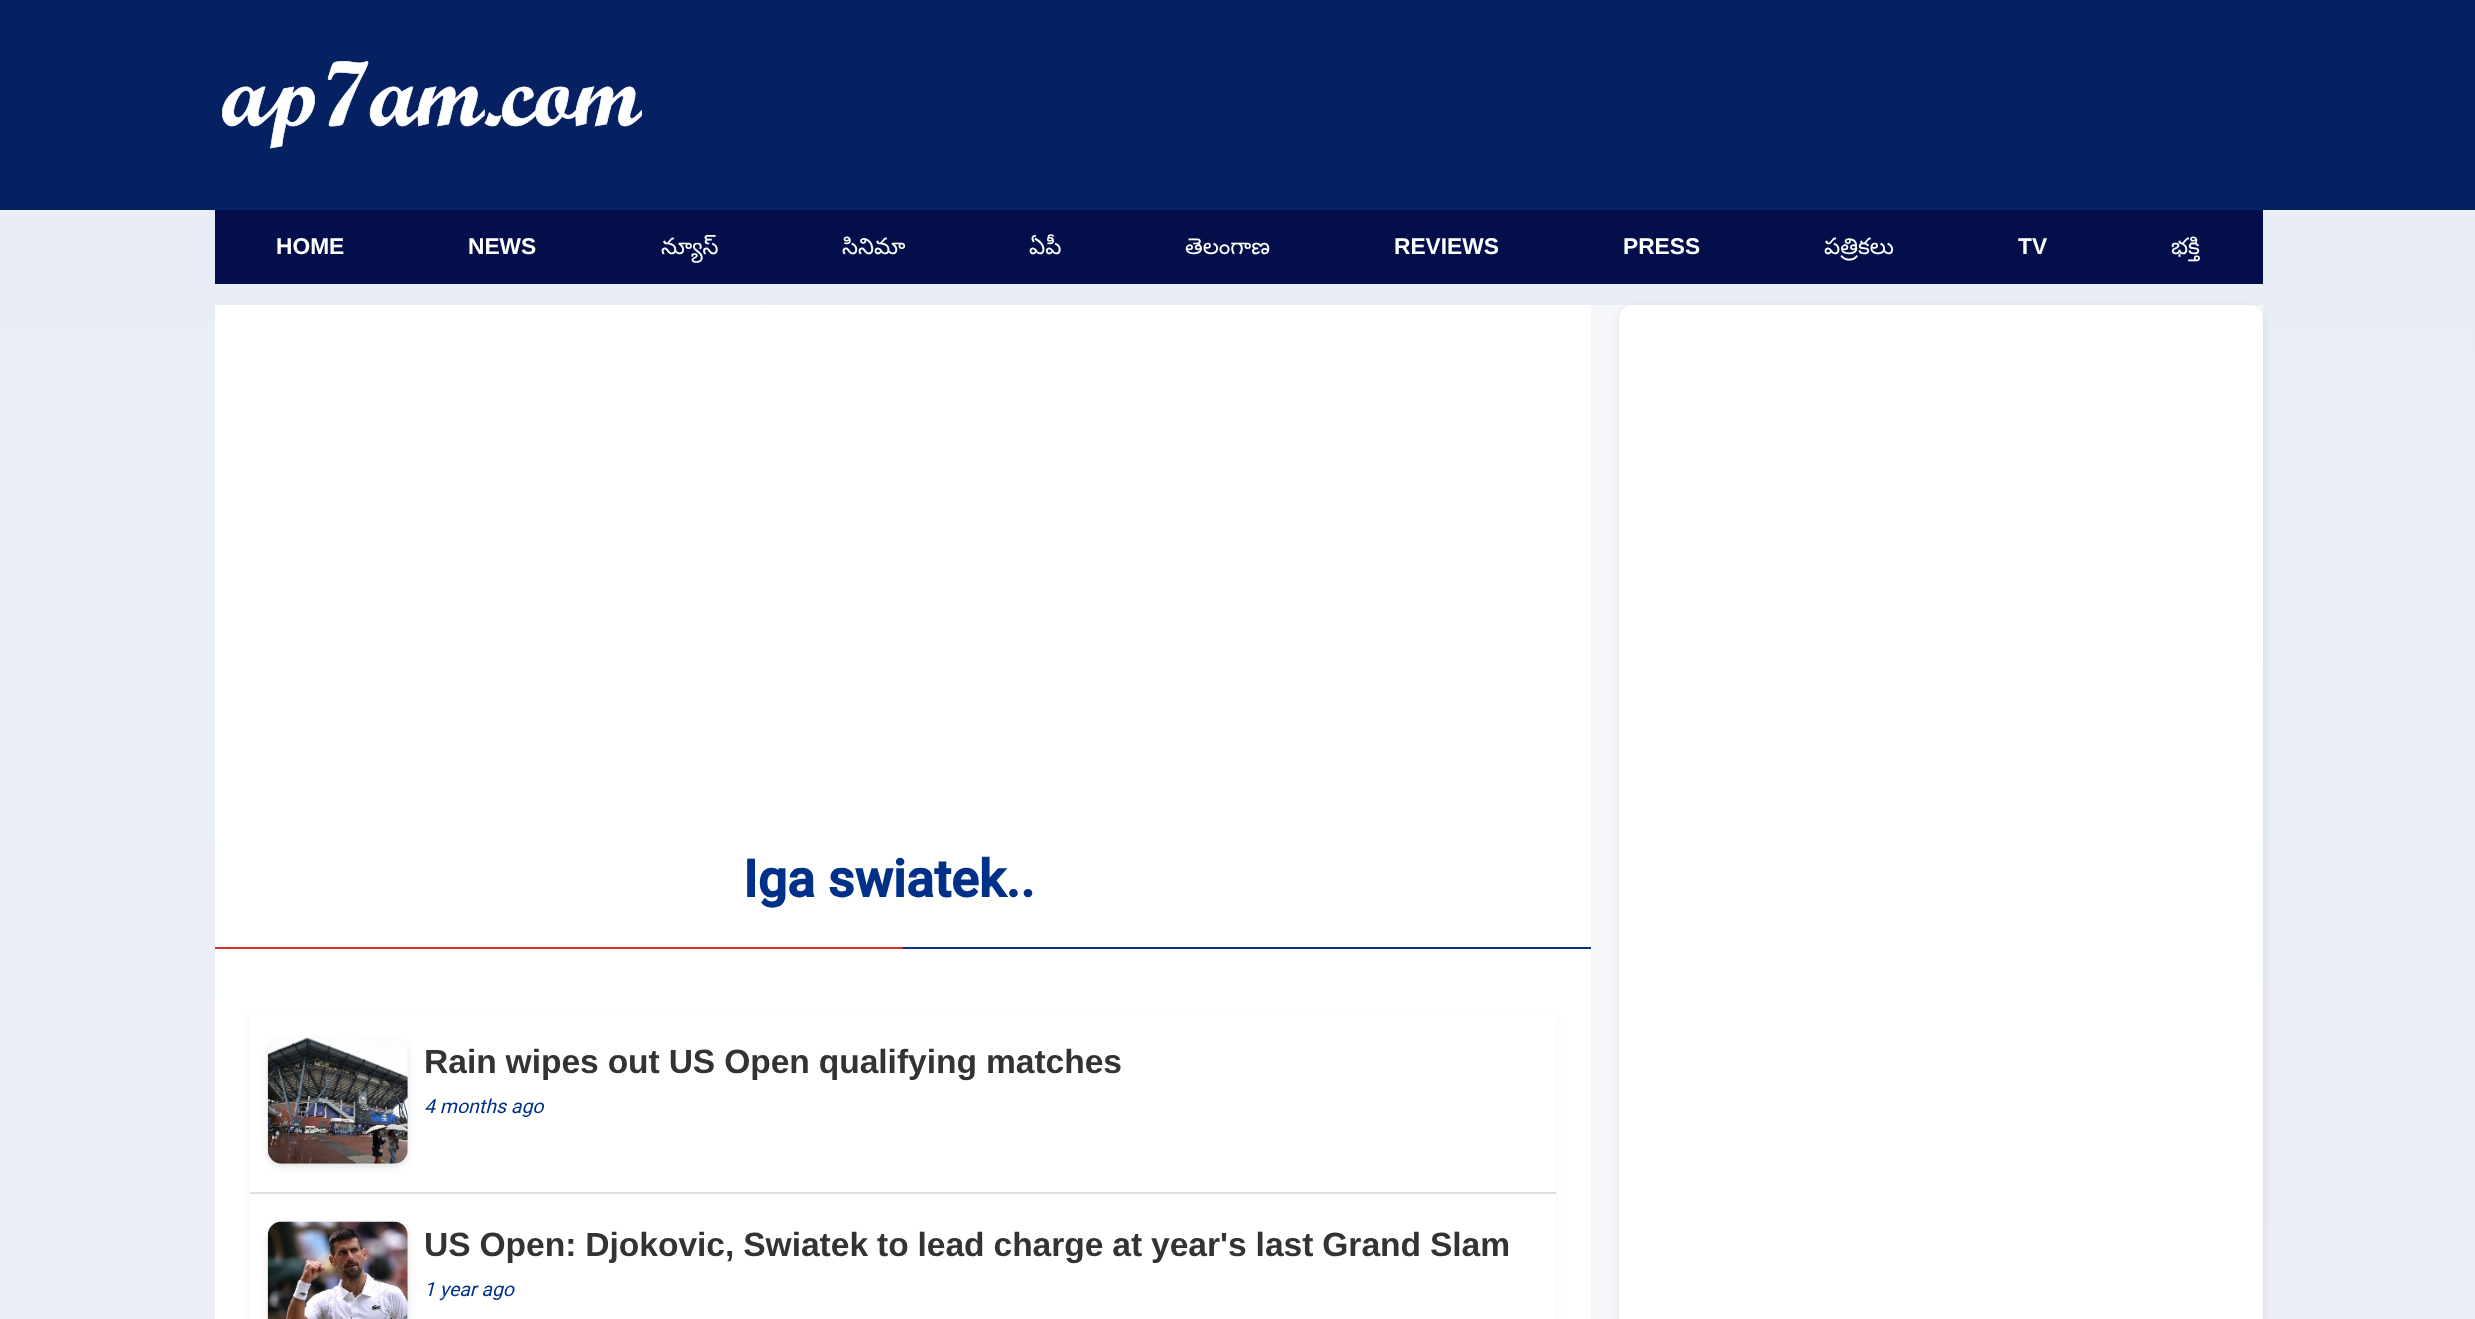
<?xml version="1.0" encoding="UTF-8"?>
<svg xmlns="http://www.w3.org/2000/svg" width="2475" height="1319">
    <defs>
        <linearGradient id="g1" gradientUnits="userSpaceOnUse" x1="1238" y1="0" x2="1238" y2="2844"><stop offset="0" stop-color="#E8EDF5"/><stop offset="1" stop-color="#F0F2F5"/></linearGradient>
        <filter id="blur1" x="-50%" y="-200%" width="200%" height="500%"><feGaussianBlur stdDeviation="3.5"/></filter>
        <filter id="blur2" x="-50%" y="-200%" width="200%" height="500%"><feGaussianBlur stdDeviation="4.5"/></filter>
    </defs>
    <rect width="100%" height="100%" fill="#FFFFFF"/>
    <rect x="0" y="210" width="2475" height="1109" fill="url(#g1)"/>
    <rect x="0" y="0" width="2475" height="210" fill="#052162"/>
    <image x="222" y="61" width="420" height="88" href="img_01.png"/>
    <rect x="215" y="210" width="2048" height="74" fill="#040E4A"/>
    <text x="276" y="254" font-family="Liberation Sans" font-size="22.75" font-weight="700" fill="#FFFFFF">HOME</text>
    <text x="468" y="254" font-family="Liberation Sans" font-size="22.75" font-weight="700" fill="#FFFFFF">NEWS</text>
    <text x="661" y="254" font-family="Noto Sans Telugu" font-size="22.75" fill="#FFFFFF">న్యూస్</text>
    <text x="842" y="254" font-family="Noto Sans Telugu" font-size="22.75" fill="#FFFFFF">సినిమా</text>
    <text x="1029" y="254" font-family="Noto Sans Telugu" font-size="22.75" fill="#FFFFFF">ఏపీ</text>
    <text x="1185" y="254" font-family="Noto Sans Telugu" font-size="22.75" fill="#FFFFFF">తెలంగాణ</text>
    <text x="1394" y="254" font-family="Liberation Sans" font-size="22.75" font-weight="700" fill="#FFFFFF">REVIEWS</text>
    <text x="1623" y="254" font-family="Liberation Sans" font-size="22.75" font-weight="700" fill="#FFFFFF">PRESS</text>
    <text x="1824" y="254" font-family="Noto Sans Telugu" font-size="22.75" fill="#FFFFFF">పత్రికలు</text>
    <text x="2018" y="254" font-family="Liberation Sans" font-size="22.75" font-weight="700" fill="#FFFFFF">TV</text>
    <text x="2171" y="254" font-family="Noto Sans Telugu" font-size="22.75" fill="#FFFFFF">భక్తి</text>
    <rect x="1591" y="305" width="672" height="1014" fill="#F5F7FA"/>
    <rect x="215" y="305" width="1376" height="1014" fill="#FFFFFF"/>
    <rect x="903" y="947" width="688" height="2" fill="#003087"/>
    <text x="743" y="897" font-family="Roboto" font-size="51.75" font-weight="700" fill="#003087">Iga swiatek..</text>
    <rect x="215" y="947" width="688" height="2" fill="#D32F2F"/>
    <rect x="250" y="1013" width="1306" height="184" fill="#000000" fill-opacity="0.05" filter="url(#blur1)"/>
    <rect x="250" y="1010" width="1306" height="182" fill="#FFFFFF"/>
    <rect x="250" y="1192" width="1306" height="2" fill="#E0E0E0"/>
    <rect x="268" y="1041" width="140" height="126" rx="14" fill="#000000" fill-opacity="0.1" filter="url(#blur1)"/>
    <image x="267" y="1037" width="141" height="127" href="img_02.png"/>
    <text x="424" y="1073" font-family="Ramabhadra" font-size="33.6" fill="#333333">Rain wipes out US Open qualifying matches</text>
    <text x="424" y="1113" font-family="Roboto" font-size="19.5" font-style="italic" fill="#003087">4 months ago</text>
    <rect x="250" y="1197" width="1306" height="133" fill="#000000" fill-opacity="0.05" filter="url(#blur1)"/>
    <rect x="250" y="1194" width="1306" height="125" fill="#FFFFFF"/>
    <rect x="268" y="1225" width="140" height="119" rx="14" fill="#000000" fill-opacity="0.1" filter="url(#blur1)"/>
    <image x="267" y="1221" width="141" height="98" href="img_03.png"/>
    <text x="424" y="1256" font-family="Ramabhadra" font-size="33.6" fill="#333333">US Open: Djokovic, Swiatek to lead charge at year's last Grand Slam</text>
    <text x="424" y="1296" font-family="Roboto" font-size="19.5" font-style="italic" fill="#003087">1 year ago</text>
    <rect x="1619" y="308" width="644" height="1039" rx="14" fill="#000000" fill-opacity="0.1" filter="url(#blur2)"/>
    <rect x="1619" y="305" width="644" height="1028" rx="14" fill="#FFFFFF"/>
</svg>
